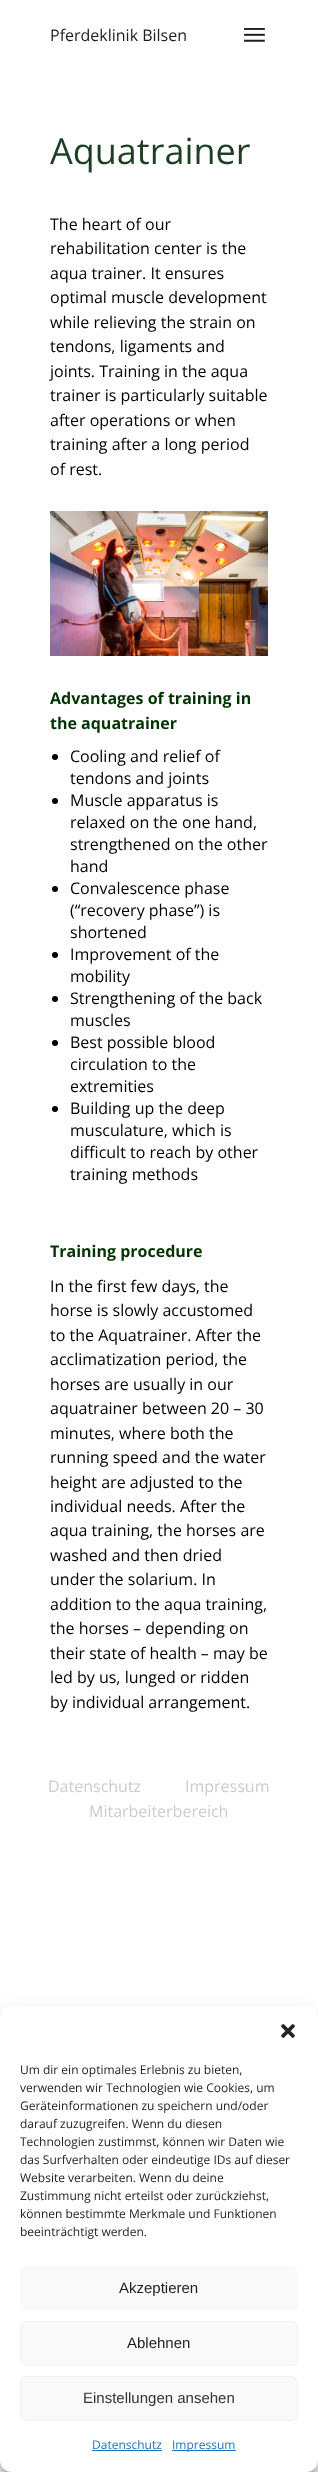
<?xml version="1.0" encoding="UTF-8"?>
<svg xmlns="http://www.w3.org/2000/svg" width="318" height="2472">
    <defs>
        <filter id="blur1" x="-50%" y="-200%" width="200%" height="500%"><feGaussianBlur stdDeviation="3"/></filter>
        <filter id="blur2" x="-50%" y="-200%" width="200%" height="500%"><feGaussianBlur stdDeviation="10"/></filter>
    </defs>
    <rect width="100%" height="100%" fill="#FFFFFF"/>
    <text x="50" y="41" font-family="Open Sans" font-size="16" fill="#1E1E1E">Pferdeklinik Bilsen</text>
    <image x="244" y="28" width="21" height="14" href="img_01.png"/>
    <text x="50" y="164" font-family="Open Sans" font-size="36" fill="#1F3F25">Aquatrainer</text>
    <text font-family="Open Sans" font-size="16" fill="#000000">
        <tspan x="50" y="230">The heart of our</tspan>
        <tspan x="50" y="254">rehabilitation center is the</tspan>
        <tspan x="50" y="279">aqua trainer. It ensures</tspan>
        <tspan x="50" y="303">optimal muscle development</tspan>
        <tspan x="50" y="328">while relieving the strain on</tspan>
        <tspan x="50" y="352">tendons, ligaments and</tspan>
        <tspan x="50" y="377">joints. Training in the aqua</tspan>
        <tspan x="50" y="401">trainer is particularly suitable</tspan>
        <tspan x="50" y="426">after operations or when</tspan>
        <tspan x="50" y="450">training after a long period</tspan>
        <tspan x="50" y="475">of rest.</tspan>
    </text>
    <image x="50" y="511" width="218" height="145" href="img_02.png"/>
    <text font-family="Open Sans" font-size="16" font-weight="700" fill="#003300">
        <tspan x="50" y="704">Advantages of training in</tspan>
        <tspan x="50" y="729">the aquatrainer</tspan>
    </text>
    <circle cx="55" cy="757" r="3" fill="#000000"/>
    <text font-family="Open Sans" font-size="16" fill="#000000">
        <tspan x="70" y="762">Cooling and relief of</tspan>
        <tspan x="70" y="784">tendons and joints</tspan>
    </text>
    <circle cx="55" cy="801" r="3" fill="#000000"/>
    <text font-family="Open Sans" font-size="16" fill="#000000">
        <tspan x="70" y="806">Muscle apparatus is</tspan>
        <tspan x="70" y="828">relaxed on the one hand,</tspan>
        <tspan x="70" y="850">strengthened on the other</tspan>
        <tspan x="70" y="872">hand</tspan>
    </text>
    <circle cx="55" cy="889" r="3" fill="#000000"/>
    <text font-family="Open Sans" font-size="16" fill="#000000">
        <tspan x="70" y="894">Convalescence phase</tspan>
        <tspan x="70" y="916">(“recovery phase”) is</tspan>
        <tspan x="70" y="938">shortened</tspan>
    </text>
    <circle cx="55" cy="955" r="3" fill="#000000"/>
    <text font-family="Open Sans" font-size="16" fill="#000000">
        <tspan x="70" y="960">Improvement of the</tspan>
        <tspan x="70" y="982">mobility</tspan>
    </text>
    <circle cx="55" cy="999" r="3" fill="#000000"/>
    <text font-family="Open Sans" font-size="16" fill="#000000">
        <tspan x="70" y="1004">Strengthening of the back</tspan>
        <tspan x="70" y="1026">muscles</tspan>
    </text>
    <circle cx="55" cy="1043" r="3" fill="#000000"/>
    <text font-family="Open Sans" font-size="16" fill="#000000">
        <tspan x="70" y="1048">Best possible blood</tspan>
        <tspan x="70" y="1070">circulation to the</tspan>
        <tspan x="70" y="1092">extremities</tspan>
    </text>
    <circle cx="55" cy="1109" r="3" fill="#000000"/>
    <text font-family="Open Sans" font-size="16" fill="#000000">
        <tspan x="70" y="1114">Building up the deep</tspan>
        <tspan x="70" y="1136">musculature, which is</tspan>
        <tspan x="70" y="1158">difficult to reach by other</tspan>
        <tspan x="70" y="1180">training methods</tspan>
    </text>
    <text x="50" y="1257" font-family="Open Sans" font-size="16" font-weight="700" fill="#003300">Training procedure</text>
    <text font-family="Open Sans" font-size="16" fill="#000000">
        <tspan x="50" y="1292">In the first few days, the</tspan>
        <tspan x="50" y="1316">horse is slowly accustomed</tspan>
        <tspan x="50" y="1341">to the Aquatrainer. After the</tspan>
        <tspan x="50" y="1365">acclimatization period, the</tspan>
        <tspan x="50" y="1390">horses are usually in our</tspan>
        <tspan x="50" y="1414">aquatrainer between 20 – 30</tspan>
        <tspan x="50" y="1439">minutes, where both the</tspan>
        <tspan x="50" y="1463">running speed and the water</tspan>
        <tspan x="50" y="1488">height are adjusted to the</tspan>
        <tspan x="50" y="1512">individual needs. After the</tspan>
        <tspan x="50" y="1536">aqua training, the horses are</tspan>
        <tspan x="50" y="1561">washed and then dried</tspan>
        <tspan x="50" y="1585">under the solarium. In</tspan>
        <tspan x="50" y="1610">addition to the aqua training,</tspan>
        <tspan x="50" y="1634">the horses – depending on</tspan>
        <tspan x="50" y="1659">their state of health – may be</tspan>
        <tspan x="50" y="1683">led by us, lunged or ridden</tspan>
        <tspan x="50" y="1708">by individual arrangement.</tspan>
    </text>
    <text x="48" y="1792" font-family="Open Sans" font-size="16" fill="#CCCCCC">Datenschutz</text>
    <text x="185" y="1792" font-family="Open Sans" font-size="16" fill="#CCCCCC">Impressum</text>
    <text x="89" y="1817" font-family="Open Sans" font-size="16" fill="#CCCCCC">Mitarbeiterbereich</text>
    <rect x="0" y="2012" width="318" height="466" rx="12" fill="#000000" fill-opacity="0.23" filter="url(#blur1)"/>
    <rect x="0" y="2016" width="318" height="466" rx="12" fill="#000000" fill-opacity="0.19" filter="url(#blur2)"/>
    <rect x="0" y="2006" width="318" height="466" rx="12" fill="#FFFFFF"/>
    <image x="281" y="2024" width="14" height="14" href="img_03.png"/>
    <text font-family="Open Sans" font-size="12" fill="#1E1E1E">
        <tspan x="20" y="2074">Um dir ein optimales Erlebnis zu bieten,</tspan>
        <tspan x="20" y="2092">verwenden wir Technologien wie Cookies, um</tspan>
        <tspan x="20" y="2110">Geräteinformationen zu speichern und/oder</tspan>
        <tspan x="20" y="2128">darauf zuzugreifen. Wenn du diesen</tspan>
        <tspan x="20" y="2146">Technologien zustimmst, können wir Daten wie</tspan>
        <tspan x="20" y="2164">das Surfverhalten oder eindeutige IDs auf dieser</tspan>
        <tspan x="20" y="2182">Website verarbeiten. Wenn du deine</tspan>
        <tspan x="20" y="2200">Zustimmung nicht erteilst oder zurückziehst,</tspan>
        <tspan x="20" y="2218">können bestimmte Merkmale und Funktionen</tspan>
        <tspan x="20" y="2236">beeinträchtigt werden.</tspan>
    </text>
    <rect x="20" y="2266" width="278" height="45" rx="6" fill="#F9F9F9"/>
    <text x="119" y="2293" font-family="Liberation Sans" font-size="15" fill="#1E1E1E">Akzeptieren</text>
    <rect x="20.5" y="2321.5" width="277" height="44" rx="5.5" fill="#F9F9F9" stroke="#F2F2F2"/>
    <text x="127" y="2348" font-family="Liberation Sans" font-size="15" fill="#1E1E1E">Ablehnen</text>
    <rect x="20.5" y="2376.5" width="277" height="44" rx="5.5" fill="#F9F9F9" stroke="#F2F2F2"/>
    <text x="83" y="2403" font-family="Liberation Sans" font-size="15" fill="#333333">Einstellungen ansehen</text>
    <text x="92" y="2449" font-family="Open Sans" font-size="12" fill="#1E73BE">Datenschutz</text>
    <rect x="92" y="2450" width="70" height="1" fill="#1E73BE"/>
    <rect x="172" y="2450" width="64" height="1" fill="#1E73BE"/>
    <text x="172" y="2449" font-family="Open Sans" font-size="12" fill="#1E73BE">Impressum</text>
</svg>
